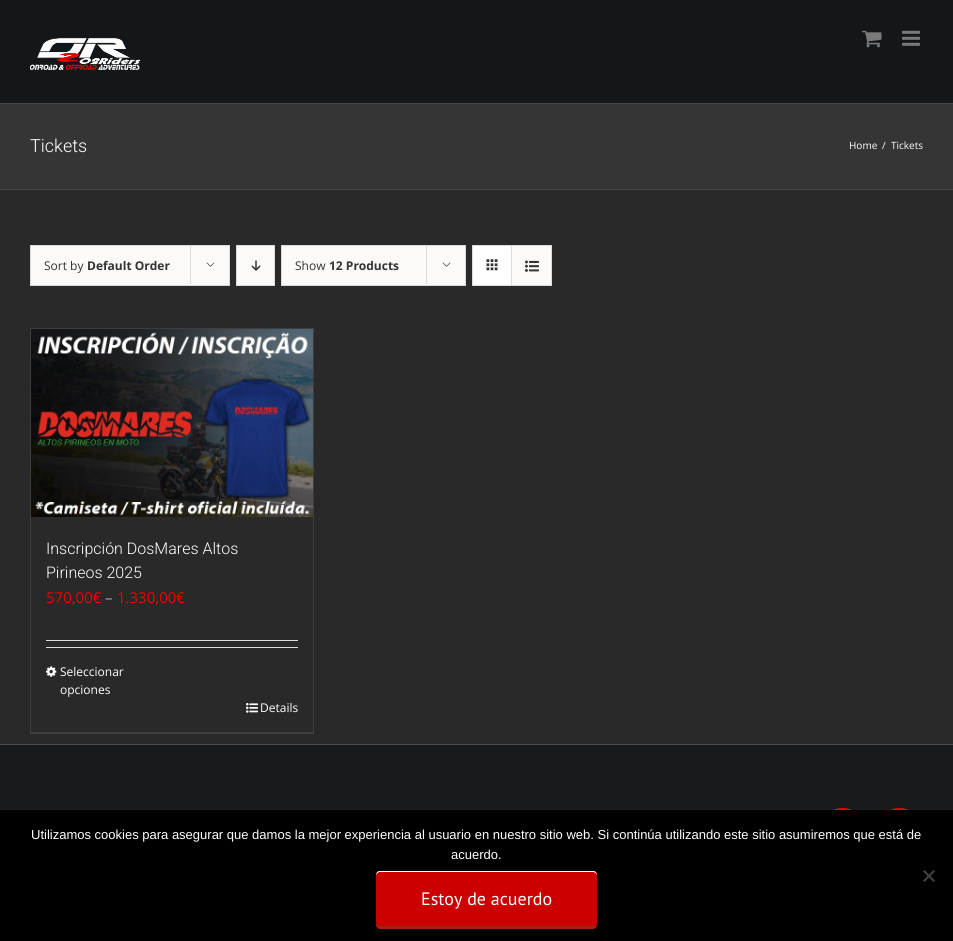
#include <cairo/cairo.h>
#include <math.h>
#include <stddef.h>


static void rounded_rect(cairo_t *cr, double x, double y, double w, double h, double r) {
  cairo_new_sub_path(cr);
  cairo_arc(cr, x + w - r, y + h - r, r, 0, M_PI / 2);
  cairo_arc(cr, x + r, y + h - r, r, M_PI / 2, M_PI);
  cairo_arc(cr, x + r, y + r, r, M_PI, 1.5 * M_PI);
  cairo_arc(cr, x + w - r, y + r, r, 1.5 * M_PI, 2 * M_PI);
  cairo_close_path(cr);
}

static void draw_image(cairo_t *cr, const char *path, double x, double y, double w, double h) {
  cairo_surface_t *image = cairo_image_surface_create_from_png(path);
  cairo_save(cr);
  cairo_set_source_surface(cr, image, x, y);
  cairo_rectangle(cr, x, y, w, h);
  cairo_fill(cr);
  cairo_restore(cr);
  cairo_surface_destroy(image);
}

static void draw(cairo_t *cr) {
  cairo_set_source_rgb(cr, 41 / 255.0, 41 / 255.0, 42 / 255.0);
  cairo_paint(cr);
  cairo_set_source_rgb(cr, 20 / 255.0, 23 / 255.0, 25 / 255.0);
  cairo_rectangle(cr, 0, 0, 953, 103);
  cairo_fill(cr);
  draw_image(cr, "images/1.png", 30, 38, 110, 32);
  draw_image(cr, "images/2.png", 862, 30, 20, 18);
  draw_image(cr, "images/3.png", 902, 30, 18, 16);
  cairo_set_source_rgb(cr, 53 / 255.0, 53 / 255.0, 53 / 255.0);
  cairo_rectangle(cr, 0, 104, 953, 85);
  cairo_fill(cr);
  cairo_set_source_rgb(cr, 70 / 255.0, 70 / 255.0, 70 / 255.0);
  cairo_rectangle(cr, 0, 103, 953, 1);
  cairo_fill(cr);
  cairo_rectangle(cr, 0, 189, 953, 1);
  cairo_fill(cr);
  cairo_set_source_rgb(cr, 251 / 255.0, 250 / 255.0, 249 / 255.0);
  cairo_rectangle(cr, 30.5, 245.5, 199, 40);
  cairo_fill_preserve(cr);
  cairo_set_source_rgb(cr, 219 / 255.0, 219 / 255.0, 219 / 255.0);
  cairo_set_line_width(cr, 1);
  cairo_stroke(cr);
  cairo_rectangle(cr, 190, 245, 1, 39);
  cairo_fill(cr);
  draw_image(cr, "images/4.png", 206, 262, 9, 5);
  cairo_set_source_rgb(cr, 251 / 255.0, 250 / 255.0, 249 / 255.0);
  cairo_rectangle(cr, 236.5, 245.5, 38, 40);
  cairo_fill_preserve(cr);
  cairo_set_source_rgb(cr, 219 / 255.0, 219 / 255.0, 219 / 255.0);
  cairo_stroke(cr);
  draw_image(cr, "images/5.png", 251, 260, 10, 11);
  cairo_set_source_rgb(cr, 251 / 255.0, 250 / 255.0, 249 / 255.0);
  cairo_rectangle(cr, 281.5, 245.5, 184, 40);
  cairo_fill_preserve(cr);
  cairo_set_source_rgb(cr, 219 / 255.0, 219 / 255.0, 219 / 255.0);
  cairo_stroke(cr);
  cairo_rectangle(cr, 426, 245, 1, 39);
  cairo_fill(cr);
  draw_image(cr, "images/4.png", 442, 262, 9, 5);
  cairo_rectangle(cr, 472.5, 245.5, 79, 40);
  cairo_stroke(cr);
  cairo_set_source_rgb(cr, 1, 1, 1);
  cairo_rectangle(cr, 473, 246, 38, 39);
  cairo_fill(cr);
  cairo_set_source_rgb(cr, 219 / 255.0, 219 / 255.0, 219 / 255.0);
  cairo_rectangle(cr, 511, 246, 1, 39);
  cairo_fill(cr);
  draw_image(cr, "images/6.png", 486, 259, 12, 12);
  cairo_set_source_rgb(cr, 251 / 255.0, 250 / 255.0, 249 / 255.0);
  cairo_rectangle(cr, 512, 246, 39, 39);
  cairo_fill(cr);
  draw_image(cr, "images/7.png", 525, 260, 14, 12);
  cairo_set_source_rgb(cr, 62 / 255.0, 62 / 255.0, 62 / 255.0);
  cairo_rectangle(cr, 30, 328, 284, 1);
  cairo_fill(cr);
  cairo_rectangle(cr, 313, 328, 1, 406);
  cairo_fill(cr);
  cairo_rectangle(cr, 30, 732, 284, 2);
  cairo_fill(cr);
  cairo_rectangle(cr, 30, 328, 1, 406);
  cairo_fill(cr);
  draw_image(cr, "images/8.png", 31, 329, 282, 188);
  cairo_set_source_rgb(cr, 224 / 255.0, 222 / 255.0, 222 / 255.0);
  cairo_rectangle(cr, 46, 640, 252, 1);
  cairo_fill(cr);
  cairo_rectangle(cr, 46, 647, 252, 1);
  cairo_fill(cr);
  draw_image(cr, "images/9.png", 46, 666, 11, 11);
  draw_image(cr, "images/10.png", 246, 703, 12, 10);
  cairo_set_source_rgb(cr, 23 / 255.0, 27 / 255.0, 29 / 255.0);
  cairo_rectangle(cr, 0, 745, 953, 65);
  cairo_fill(cr);
  cairo_set_source_rgb(cr, 75 / 255.0, 76 / 255.0, 77 / 255.0);
  cairo_rectangle(cr, 0, 744, 953, 1);
  cairo_fill(cr);
  cairo_set_source_rgb(cr, 239 / 255.0, 0, 0);
  cairo_arc(cr, 842.5, 831.5, 23, 0, 2 * M_PI);
  cairo_fill_preserve(cr);
  cairo_stroke(cr);
  cairo_arc(cr, 899.5, 831.5, 23, 0, 2 * M_PI);
  cairo_fill_preserve(cr);
  cairo_stroke(cr);
  cairo_set_source_rgb(cr, 0, 0, 0);
  cairo_rectangle(cr, 0, 810, 953, 131);
  cairo_fill(cr);
  cairo_set_source_rgb(cr, 64 / 255.0, 64 / 255.0, 64 / 255.0);
  cairo_new_path(cr);
  cairo_move_to(cr, 933.5, 870);
  cairo_line_to(cr, 935, 871.5);
  cairo_line_to(cr, 924.5, 882);
  cairo_line_to(cr, 923, 880.5);
  cairo_close_path(cr);
  cairo_fill(cr);
  cairo_new_path(cr);
  cairo_move_to(cr, 923, 871.5);
  cairo_line_to(cr, 924.5, 870);
  cairo_line_to(cr, 935, 880.5);
  cairo_line_to(cr, 933.5, 882);
  cairo_close_path(cr);
  cairo_fill(cr);
  cairo_set_source_rgb(cr, 160 / 255.0, 36 / 255.0, 22 / 255.0);
  cairo_new_path(cr);
  cairo_move_to(cr, 376, 922);
  cairo_line_to(cr, 376, 925);
  cairo_curve_to(cr, 376, 927, 378, 929, 380, 929);
  cairo_line_to(cr, 593, 929);
  cairo_curve_to(cr, 595, 929, 597, 927, 597, 925);
  cairo_line_to(cr, 597, 922);
  cairo_curve_to(cr, 597, 924, 595, 926, 593, 926);
  cairo_line_to(cr, 380, 926);
  cairo_curve_to(cr, 378, 926, 376, 924, 376, 922);
  cairo_close_path(cr);
  cairo_fill(cr);
  cairo_set_source_rgb(cr, 204 / 255.0, 0, 0);
  rounded_rect(cr, 376, 871, 221, 55, 4);
  cairo_fill(cr);
  cairo_set_source_rgb(cr, 1, 1, 1);
  cairo_new_path(cr);
  cairo_move_to(cr, 380, 872);
  cairo_line_to(cr, 593, 872);
  cairo_curve_to(cr, 595, 872, 597, 874, 597, 876);
  cairo_curve_to(cr, 597, 873, 596, 871, 593, 871);
  cairo_line_to(cr, 380, 871);
  cairo_curve_to(cr, 377, 871, 376, 873, 376, 876);
  cairo_curve_to(cr, 376, 874, 378, 872, 380, 872);
  cairo_close_path(cr);
  cairo_fill(cr);
  cairo_select_font_face(cr, "Roboto Light", CAIRO_FONT_SLANT_NORMAL, CAIRO_FONT_WEIGHT_NORMAL);
  cairo_set_font_size(cr, 18);
  cairo_move_to(cr, 30, 152);
  cairo_show_text(cr, "Tickets");
  cairo_select_font_face(cr, "Open Sans", CAIRO_FONT_SLANT_NORMAL, CAIRO_FONT_WEIGHT_NORMAL);
  cairo_set_font_size(cr, 10);
  cairo_move_to(cr, 849, 149);
  cairo_show_text(cr, "Home");
  cairo_move_to(cr, 882, 149);
  cairo_show_text(cr, "/");
  cairo_move_to(cr, 891, 149);
  cairo_show_text(cr, "Tickets");
  cairo_set_font_size(cr, 12);
  cairo_set_source_rgb(cr, 51 / 255.0, 51 / 255.0, 51 / 255.0);
  cairo_move_to(cr, 44, 270);
  cairo_show_text(cr, "Sort by");
  cairo_select_font_face(cr, "Open Sans", CAIRO_FONT_SLANT_NORMAL, CAIRO_FONT_WEIGHT_BOLD);
  cairo_move_to(cr, 87, 270);
  cairo_show_text(cr, "Default Order");
  cairo_select_font_face(cr, "Open Sans", CAIRO_FONT_SLANT_NORMAL, CAIRO_FONT_WEIGHT_NORMAL);
  cairo_move_to(cr, 295, 270);
  cairo_show_text(cr, "Show");
  cairo_select_font_face(cr, "Open Sans", CAIRO_FONT_SLANT_NORMAL, CAIRO_FONT_WEIGHT_BOLD);
  cairo_move_to(cr, 329, 270);
  cairo_show_text(cr, "12 Products");
  cairo_select_font_face(cr, "Roboto Light", CAIRO_FONT_SLANT_NORMAL, CAIRO_FONT_WEIGHT_NORMAL);
  cairo_set_font_size(cr, 16);
  cairo_set_source_rgb(cr, 1, 1, 1);
  cairo_move_to(cr, 46, 554);
  cairo_show_text(cr, "Inscripción DosMares Altos");
  cairo_move_to(cr, 46, 578);
  cairo_show_text(cr, "Pirineos 2025");
  cairo_select_font_face(cr, "Open Sans", CAIRO_FONT_SLANT_NORMAL, CAIRO_FONT_WEIGHT_NORMAL);
  cairo_set_font_size(cr, 15);
  cairo_set_source_rgb(cr, 239 / 255.0, 0, 0);
  cairo_move_to(cr, 46, 603);
  cairo_show_text(cr, "570,00€");
  cairo_set_source_rgb(cr, 170 / 255.0, 169 / 255.0, 169 / 255.0);
  cairo_move_to(cr, 105, 603);
  cairo_show_text(cr, "–");
  cairo_set_source_rgb(cr, 239 / 255.0, 0, 0);
  cairo_move_to(cr, 117, 603);
  cairo_show_text(cr, "1.330,00€");
  cairo_set_font_size(cr, 12);
  cairo_set_source_rgb(cr, 1, 1, 1);
  cairo_move_to(cr, 60, 676);
  cairo_show_text(cr, "Seleccionar");
  cairo_move_to(cr, 60, 694);
  cairo_show_text(cr, "opciones");
  cairo_move_to(cr, 260, 712);
  cairo_show_text(cr, "Details");
  cairo_select_font_face(cr, "Liberation Sans", CAIRO_FONT_SLANT_NORMAL, CAIRO_FONT_WEIGHT_NORMAL);
  cairo_set_font_size(cr, 13);
  cairo_move_to(cr, 31, 839);
  cairo_show_text(cr, "Utilizamos cookies para asegurar que damos la mejor experiencia al usuario en nuestro sitio web. Si continúa utilizando este sitio asumiremos que está de");
  cairo_move_to(cr, 451, 859);
  cairo_show_text(cr, "acuerdo.");
  cairo_select_font_face(cr, "PT Sans", CAIRO_FONT_SLANT_NORMAL, CAIRO_FONT_WEIGHT_NORMAL);
  cairo_set_font_size(cr, 18);
  cairo_move_to(cr, 421, 905);
  cairo_show_text(cr, "Estoy de acuerdo");
}

int main(void) {
  cairo_surface_t *surface = cairo_image_surface_create(CAIRO_FORMAT_RGB24, 953, 941);
  cairo_t *cr = cairo_create(surface);
  cairo_font_options_t *options = cairo_font_options_create();
  cairo_font_options_set_hint_metrics(options, CAIRO_HINT_METRICS_OFF);
  cairo_font_options_set_hint_style(options, CAIRO_HINT_STYLE_NONE);
  cairo_set_font_options(cr, options);
  cairo_set_miter_limit(cr, 4);
  draw(cr);
  cairo_surface_write_to_png(surface, "out.png");
  cairo_font_options_destroy(options);
  cairo_destroy(cr);
  cairo_surface_destroy(surface);
  return 0;
}
